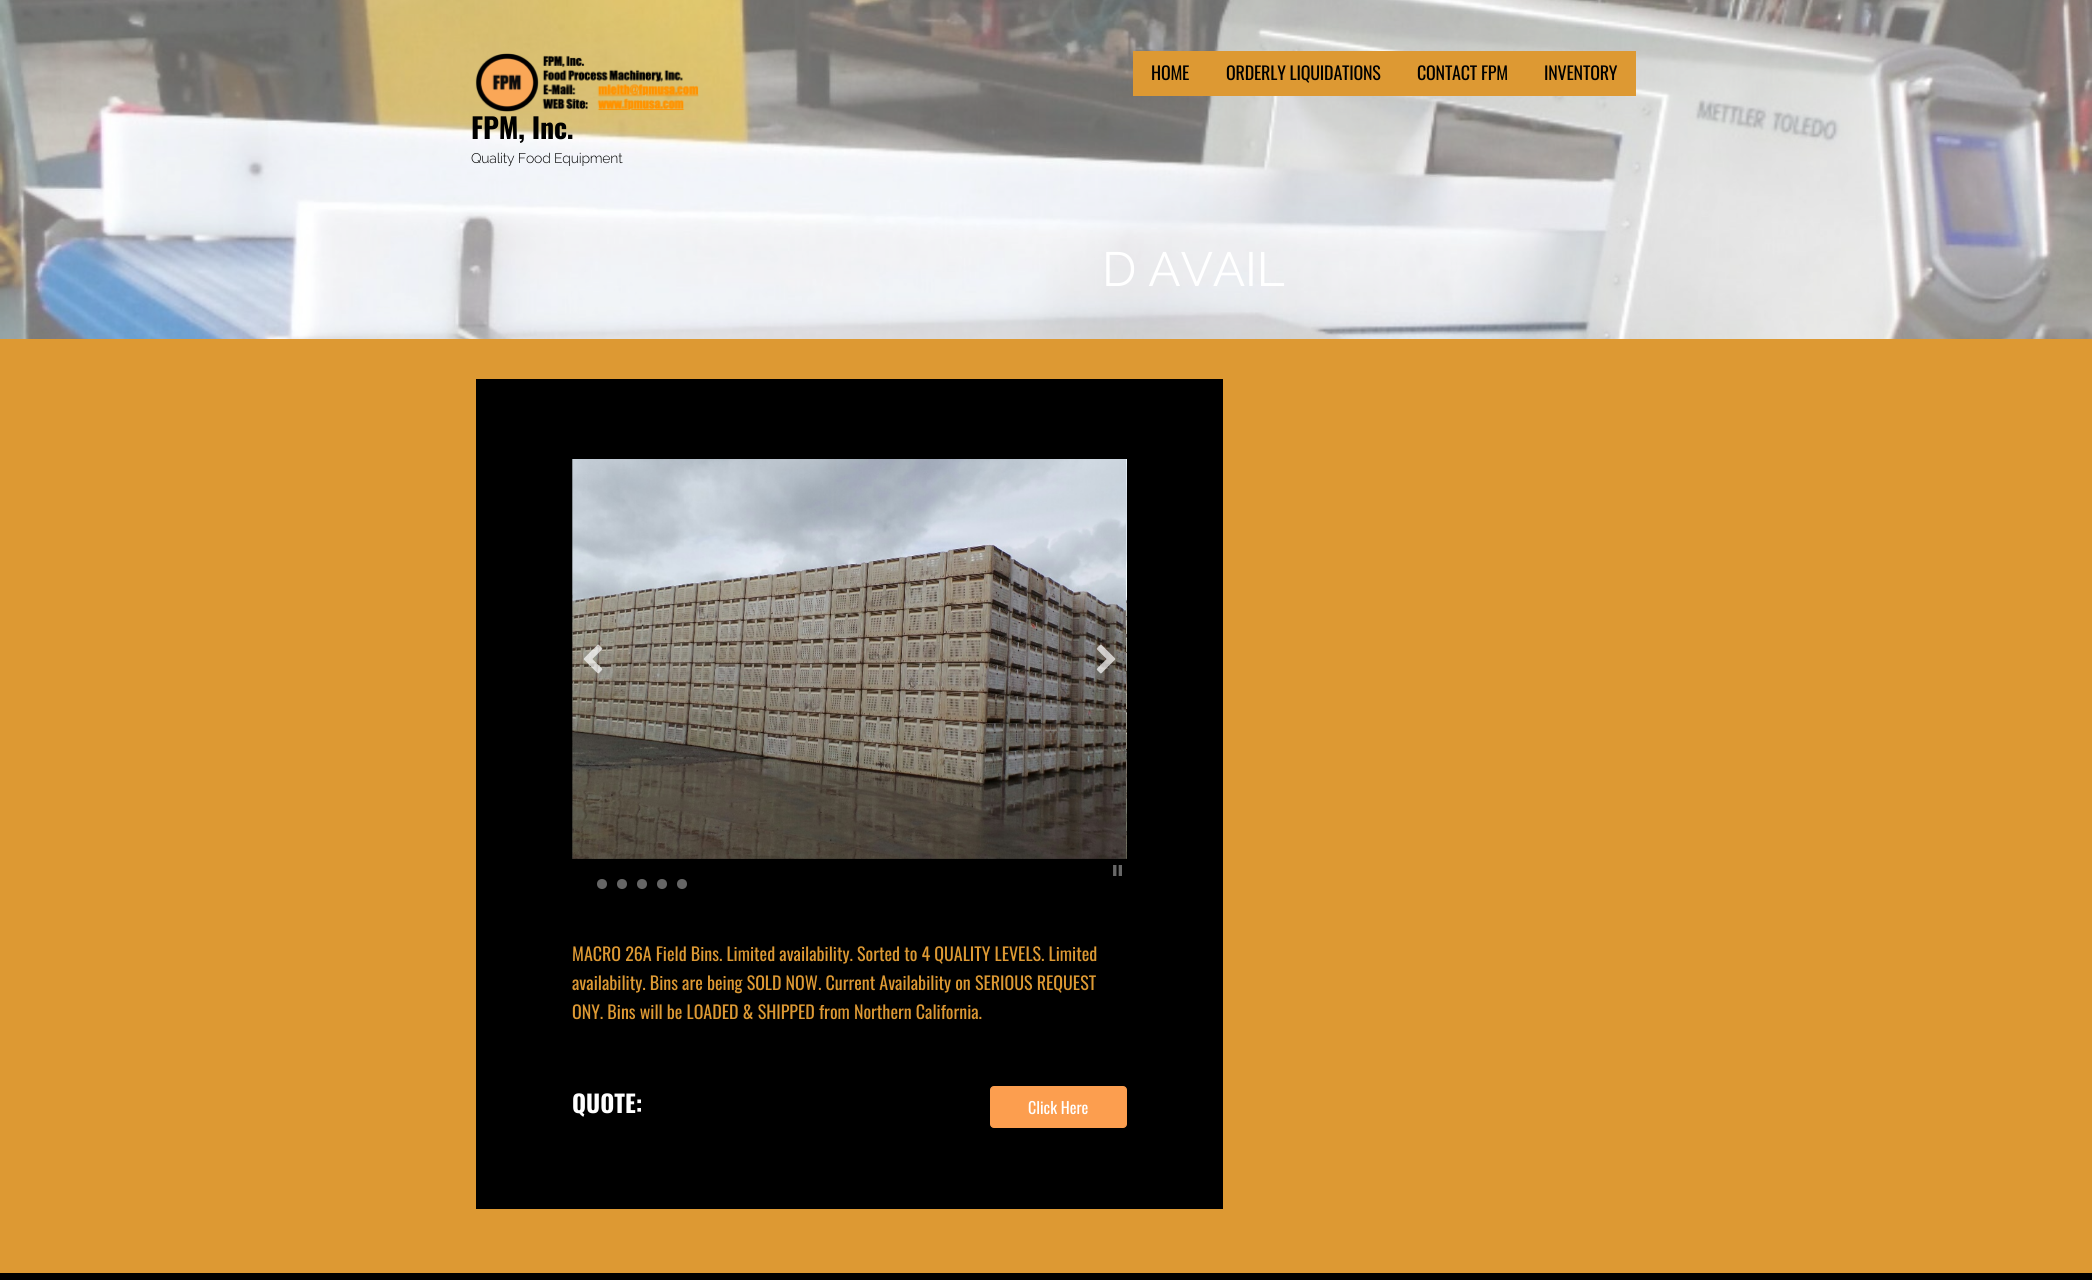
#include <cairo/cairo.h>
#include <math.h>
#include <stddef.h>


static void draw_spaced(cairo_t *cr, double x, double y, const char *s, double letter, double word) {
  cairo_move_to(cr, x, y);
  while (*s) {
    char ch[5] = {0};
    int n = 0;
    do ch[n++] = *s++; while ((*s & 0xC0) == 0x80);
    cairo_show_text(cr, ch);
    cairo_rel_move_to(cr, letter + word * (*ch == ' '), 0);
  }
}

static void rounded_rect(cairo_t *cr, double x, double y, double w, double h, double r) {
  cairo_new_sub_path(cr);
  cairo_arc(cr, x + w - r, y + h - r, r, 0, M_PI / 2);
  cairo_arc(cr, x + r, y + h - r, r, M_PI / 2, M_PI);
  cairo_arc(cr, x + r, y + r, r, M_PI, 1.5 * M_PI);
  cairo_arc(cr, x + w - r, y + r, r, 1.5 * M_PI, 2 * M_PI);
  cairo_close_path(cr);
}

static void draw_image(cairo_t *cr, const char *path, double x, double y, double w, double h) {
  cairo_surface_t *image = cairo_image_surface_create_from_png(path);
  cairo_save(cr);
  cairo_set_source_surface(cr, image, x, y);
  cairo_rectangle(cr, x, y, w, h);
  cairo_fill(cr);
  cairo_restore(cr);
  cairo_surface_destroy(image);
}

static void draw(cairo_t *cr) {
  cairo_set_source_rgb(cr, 221 / 255.0, 153 / 255.0, 51 / 255.0);
  cairo_paint(cr);
  draw_image(cr, "images/1.png", 0, 0, 2092, 339);
  cairo_set_source_rgb(cr, 221 / 255.0, 153 / 255.0, 51 / 255.0);
  cairo_rectangle(cr, 1133, 51, 503, 45);
  cairo_fill(cr);
  draw_image(cr, "images/2.png", 475, 53, 224, 59);
  cairo_set_source_rgb(cr, 0, 0, 0);
  cairo_rectangle(cr, 476, 379, 747, 830);
  cairo_fill(cr);
  draw_image(cr, "images/3.png", 572, 459, 1, 400);
  draw_image(cr, "images/4.png", 572, 459, 554, 400);
  draw_image(cr, "images/5.png", 1126, 459, 1, 400);
  draw_image(cr, "images/6.png", 1113, 865, 9, 11);
  cairo_set_source_rgb(cr, 102 / 255.0, 102 / 255.0, 102 / 255.0);
  cairo_arc(cr, 602, 884, 5, 0, 2 * M_PI);
  cairo_fill(cr);
  cairo_arc(cr, 622, 884, 5, 0, 2 * M_PI);
  cairo_fill(cr);
  cairo_arc(cr, 642, 884, 5, 0, 2 * M_PI);
  cairo_fill(cr);
  cairo_arc(cr, 662, 884, 5, 0, 2 * M_PI);
  cairo_fill(cr);
  cairo_arc(cr, 682, 884, 5, 0, 2 * M_PI);
  cairo_fill(cr);
  draw_image(cr, "images/7.png", 583, 644, 20, 30);
  draw_image(cr, "images/8.png", 1096, 644, 20, 30);
  cairo_set_source_rgb(cr, 252 / 255.0, 158 / 255.0, 79 / 255.0);
  rounded_rect(cr, 990.5, 1086.5, 136, 41, 3.5);
  cairo_fill_preserve(cr);
  cairo_set_line_width(cr, 1);
  cairo_stroke(cr);
  cairo_set_source_rgb(cr, 0, 0, 0);
  cairo_rectangle(cr, 0, 1273, 2092, 7);
  cairo_fill(cr);
  cairo_select_font_face(cr, "Oswald", CAIRO_FONT_SLANT_NORMAL, CAIRO_FONT_WEIGHT_NORMAL);
  cairo_set_font_size(cr, 18);
  draw_spaced(cr, 1151, 80, "HOME", -0.2, 0);
  draw_spaced(cr, 1226, 80, "ORDERLY LIQUIDATIONS", -0.2, 0);
  draw_spaced(cr, 1417, 80, "CONTACT FPM", -0.2, 0);
  draw_spaced(cr, 1544, 80, "INVENTORY", -0.2, 0);
  cairo_select_font_face(cr, "Oswald", CAIRO_FONT_SLANT_NORMAL, CAIRO_FONT_WEIGHT_BOLD);
  cairo_set_font_size(cr, 28);
  draw_spaced(cr, 471, 139, "FPM, Inc.", -0.2, 0);
  cairo_select_font_face(cr, "Raleway Light", CAIRO_FONT_SLANT_NORMAL, CAIRO_FONT_WEIGHT_NORMAL);
  cairo_set_font_size(cr, 14);
  draw_spaced(cr, 471, 163, "Quality Food Equipment", -0.2, 0);
  cairo_select_font_face(cr, "Raleway", CAIRO_FONT_SLANT_NORMAL, CAIRO_FONT_WEIGHT_NORMAL);
  cairo_set_font_size(cr, 48);
  cairo_set_source_rgb(cr, 1, 1, 1);
  draw_spaced(cr, 1102, 286, "D AVAIL", -0.2, 0);
  cairo_select_font_face(cr, "Oswald", CAIRO_FONT_SLANT_NORMAL, CAIRO_FONT_WEIGHT_NORMAL);
  cairo_set_font_size(cr, 18);
  cairo_set_source_rgb(cr, 221 / 255.0, 153 / 255.0, 51 / 255.0);
  cairo_move_to(cr, 572, 961);
  cairo_show_text(cr, "MACRO 26A Field Bins. Limited availability. Sorted to 4 QUALITY LEVELS. Limited");
  cairo_move_to(cr, 572, 990);
  cairo_show_text(cr, "availability. Bins are being SOLD NOW. Current Availability on SERIOUS REQUEST");
  cairo_move_to(cr, 572, 1019);
  cairo_show_text(cr, "ONY. Bins will be LOADED & SHIPPED from Northern California.");
  cairo_select_font_face(cr, "Oswald", CAIRO_FONT_SLANT_NORMAL, CAIRO_FONT_WEIGHT_BOLD);
  cairo_set_font_size(cr, 24);
  cairo_set_source_rgb(cr, 1, 1, 1);
  cairo_move_to(cr, 572, 1113);
  cairo_show_text(cr, "QUOTE:");
  cairo_select_font_face(cr, "Oswald", CAIRO_FONT_SLANT_NORMAL, CAIRO_FONT_WEIGHT_NORMAL);
  cairo_set_font_size(cr, 16);
  cairo_move_to(cr, 1028, 1114);
  cairo_show_text(cr, "Click Here");
}

int main(void) {
  cairo_surface_t *surface = cairo_image_surface_create(CAIRO_FORMAT_RGB24, 2092, 1280);
  cairo_t *cr = cairo_create(surface);
  cairo_font_options_t *options = cairo_font_options_create();
  cairo_font_options_set_hint_metrics(options, CAIRO_HINT_METRICS_OFF);
  cairo_font_options_set_hint_style(options, CAIRO_HINT_STYLE_NONE);
  cairo_set_font_options(cr, options);
  cairo_set_miter_limit(cr, 4);
  draw(cr);
  cairo_surface_write_to_png(surface, "out.png");
  cairo_font_options_destroy(options);
  cairo_destroy(cr);
  cairo_surface_destroy(surface);
  return 0;
}
